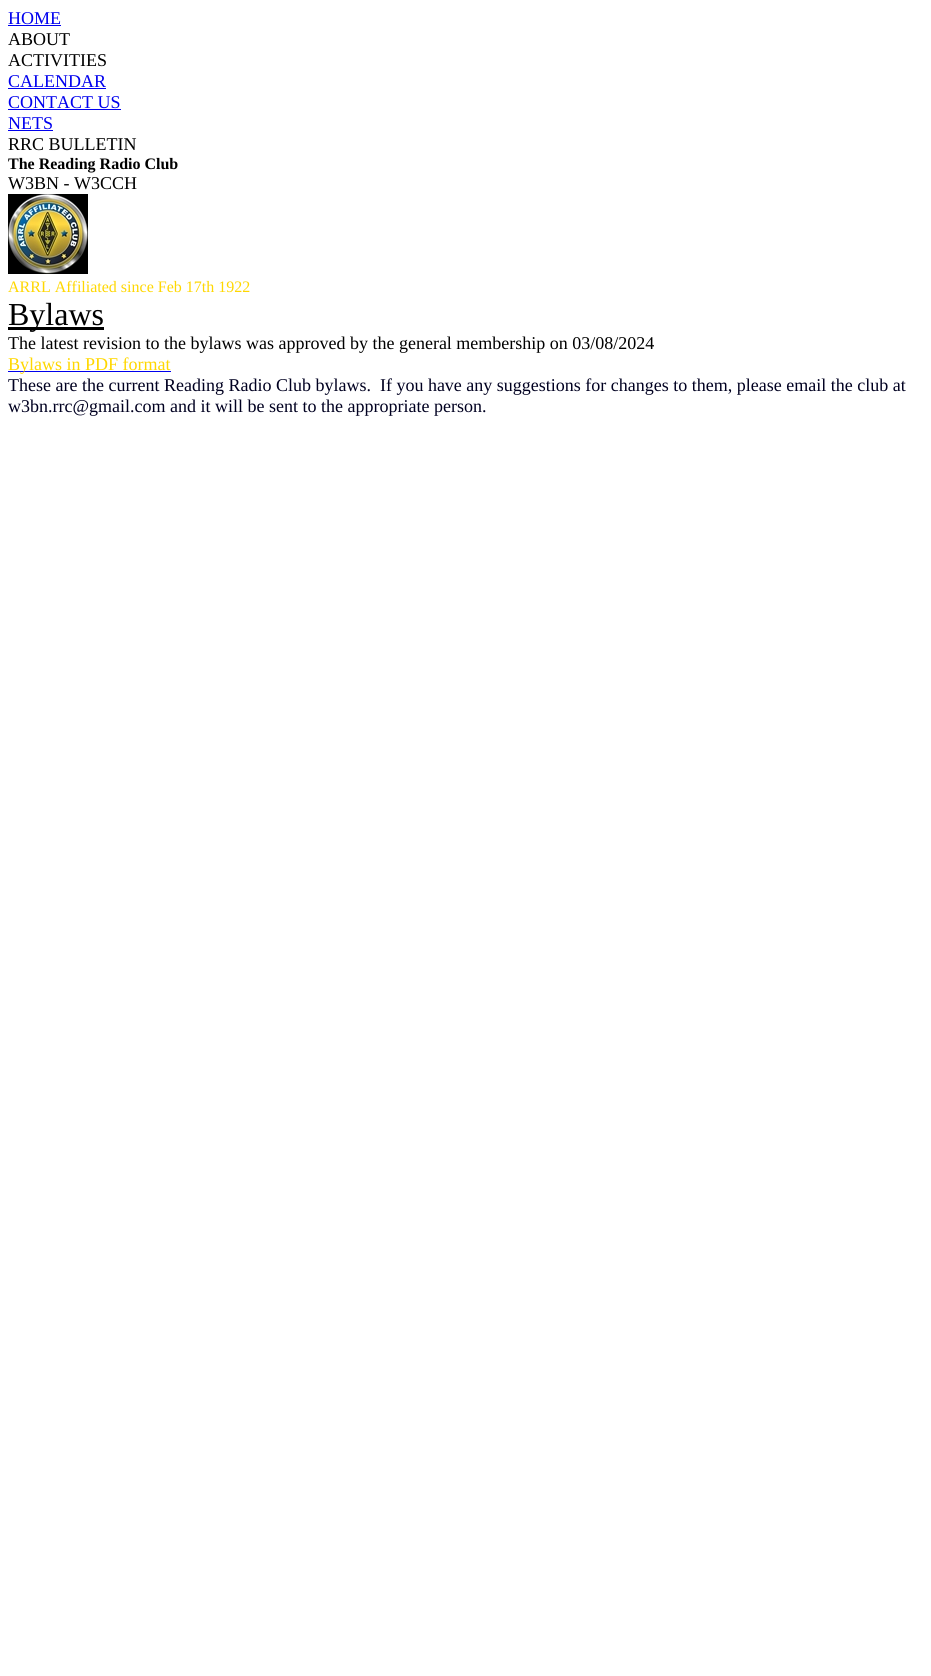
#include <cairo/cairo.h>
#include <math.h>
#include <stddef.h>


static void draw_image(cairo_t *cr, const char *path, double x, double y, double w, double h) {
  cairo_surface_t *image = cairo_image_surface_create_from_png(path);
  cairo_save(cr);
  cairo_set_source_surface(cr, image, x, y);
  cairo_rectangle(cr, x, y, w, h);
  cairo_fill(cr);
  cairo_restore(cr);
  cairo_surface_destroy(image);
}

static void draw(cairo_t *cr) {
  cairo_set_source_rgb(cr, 1, 1, 1);
  cairo_paint(cr);
  cairo_set_source_rgb(cr, 0, 0, 238 / 255.0);
  cairo_rectangle(cr, 8, 25, 53, 1);
  cairo_fill(cr);
  cairo_rectangle(cr, 8, 88, 98, 1);
  cairo_fill(cr);
  cairo_rectangle(cr, 8, 109, 113, 1);
  cairo_fill(cr);
  cairo_rectangle(cr, 8, 130, 45, 1);
  cairo_fill(cr);
  draw_image(cr, "images/1.png", 8, 194, 80, 80);
  cairo_set_source_rgb(cr, 0, 0, 0);
  cairo_rectangle(cr, 8, 327, 96, 3);
  cairo_fill(cr);
  cairo_set_source_rgb(cr, 0, 0, 238 / 255.0);
  cairo_rectangle(cr, 8, 371, 163, 1);
  cairo_fill(cr);
  cairo_select_font_face(cr, "Liberation Serif", CAIRO_FONT_SLANT_NORMAL, CAIRO_FONT_WEIGHT_NORMAL);
  cairo_set_font_size(cr, 18);
  cairo_move_to(cr, 8, 24);
  cairo_show_text(cr, "HOME");
  cairo_set_source_rgb(cr, 0, 0, 0);
  cairo_move_to(cr, 8, 45);
  cairo_show_text(cr, "ABOUT");
  cairo_move_to(cr, 8, 66);
  cairo_show_text(cr, "ACTIVITIES");
  cairo_set_source_rgb(cr, 0, 0, 238 / 255.0);
  cairo_move_to(cr, 8, 87);
  cairo_show_text(cr, "CALENDAR");
  cairo_move_to(cr, 8, 108);
  cairo_show_text(cr, "CONTACT US");
  cairo_move_to(cr, 8, 129);
  cairo_show_text(cr, "NETS");
  cairo_set_source_rgb(cr, 0, 0, 0);
  cairo_move_to(cr, 8, 150);
  cairo_show_text(cr, "RRC BULLETIN");
  cairo_select_font_face(cr, "Liberation Serif", CAIRO_FONT_SLANT_NORMAL, CAIRO_FONT_WEIGHT_BOLD);
  cairo_set_font_size(cr, 16);
  cairo_move_to(cr, 8, 169);
  cairo_show_text(cr, "The Reading Radio Club");
  cairo_select_font_face(cr, "Liberation Serif", CAIRO_FONT_SLANT_NORMAL, CAIRO_FONT_WEIGHT_NORMAL);
  cairo_set_font_size(cr, 18);
  cairo_move_to(cr, 8, 189);
  cairo_show_text(cr, "W3BN - W3CCH");
  cairo_set_font_size(cr, 16);
  cairo_set_source_rgb(cr, 1, 215 / 255.0, 0);
  cairo_move_to(cr, 8, 292);
  cairo_show_text(cr, "ARRL Affiliated since Feb 17th 1922");
  cairo_set_font_size(cr, 32);
  cairo_set_source_rgb(cr, 0, 0, 0);
  cairo_move_to(cr, 8, 325);
  cairo_show_text(cr, "Bylaws");
  cairo_set_font_size(cr, 18);
  cairo_move_to(cr, 8, 349);
  cairo_show_text(cr, "The latest revision to the bylaws was approved by the general membership on 03/08/2024");
  cairo_set_source_rgb(cr, 1, 215 / 255.0, 0);
  cairo_move_to(cr, 8, 370);
  cairo_show_text(cr, "Bylaws in PDF format");
  cairo_set_source_rgb(cr, 0, 0, 32 / 255.0);
  cairo_move_to(cr, 8, 391);
  cairo_show_text(cr, "These are the current Reading Radio Club bylaws.  If you have any suggestions for changes to them, please email the club at");
  cairo_move_to(cr, 8, 412);
  cairo_show_text(cr, "w3bn.rrc@gmail.com and it will be sent to the appropriate person.");
}

int main(void) {
  cairo_surface_t *surface = cairo_image_surface_create(CAIRO_FORMAT_RGB24, 931, 1676);
  cairo_t *cr = cairo_create(surface);
  cairo_font_options_t *options = cairo_font_options_create();
  cairo_font_options_set_hint_metrics(options, CAIRO_HINT_METRICS_OFF);
  cairo_font_options_set_hint_style(options, CAIRO_HINT_STYLE_NONE);
  cairo_set_font_options(cr, options);
  cairo_set_miter_limit(cr, 4);
  draw(cr);
  cairo_surface_write_to_png(surface, "out.png");
  cairo_font_options_destroy(options);
  cairo_destroy(cr);
  cairo_surface_destroy(surface);
  return 0;
}
